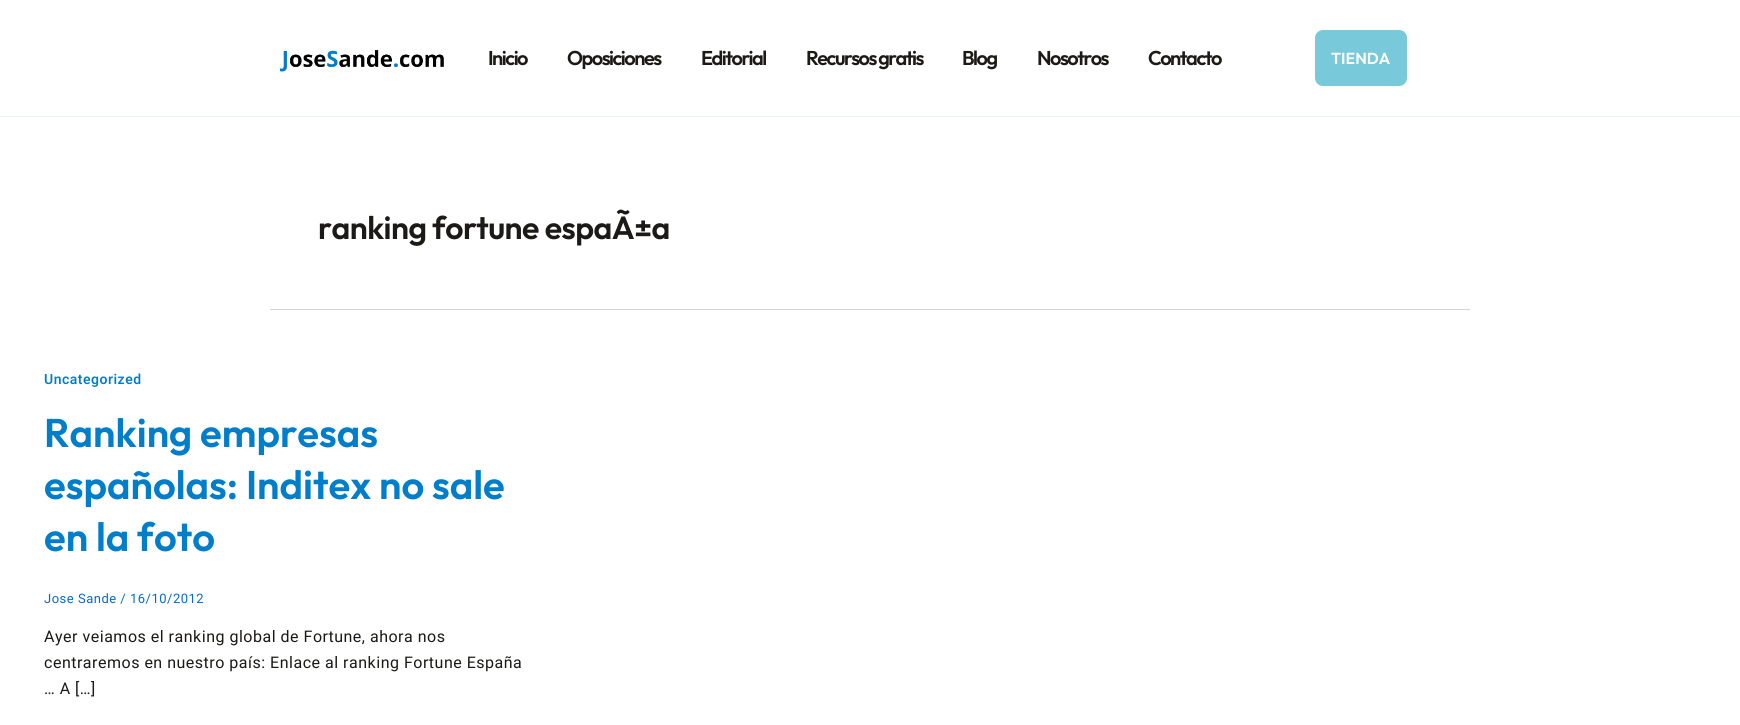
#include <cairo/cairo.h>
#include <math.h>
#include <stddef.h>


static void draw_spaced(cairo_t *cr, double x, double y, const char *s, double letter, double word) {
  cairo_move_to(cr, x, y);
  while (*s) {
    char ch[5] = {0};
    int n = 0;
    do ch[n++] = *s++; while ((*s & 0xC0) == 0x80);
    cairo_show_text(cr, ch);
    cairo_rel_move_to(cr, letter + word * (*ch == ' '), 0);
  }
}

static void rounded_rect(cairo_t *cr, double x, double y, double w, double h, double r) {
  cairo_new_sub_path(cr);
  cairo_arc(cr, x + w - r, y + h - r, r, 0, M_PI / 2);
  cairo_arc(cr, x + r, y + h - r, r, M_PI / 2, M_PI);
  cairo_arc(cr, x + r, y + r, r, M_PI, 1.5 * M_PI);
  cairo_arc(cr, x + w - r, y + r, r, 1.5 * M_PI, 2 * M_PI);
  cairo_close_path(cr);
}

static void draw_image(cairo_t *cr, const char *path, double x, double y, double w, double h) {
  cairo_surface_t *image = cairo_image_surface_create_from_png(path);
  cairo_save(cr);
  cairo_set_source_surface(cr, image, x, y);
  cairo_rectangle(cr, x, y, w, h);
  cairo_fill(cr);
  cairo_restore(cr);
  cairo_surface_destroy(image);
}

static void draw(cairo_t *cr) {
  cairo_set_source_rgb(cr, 1, 1, 1);
  cairo_paint(cr);
  cairo_set_source_rgb(cr, 234 / 255.0, 238 / 255.0, 245 / 255.0);
  cairo_rectangle(cr, 0, 116, 1740, 1);
  cairo_fill(cr);
  draw_image(cr, "images/1.png", 279, 50, 165, 22);
  cairo_set_source_rgb(cr, 120 / 255.0, 202 / 255.0, 218 / 255.0);
  rounded_rect(cr, 1315, 30, 92, 56, 8);
  cairo_fill(cr);
  cairo_set_source_rgb(cr, 209 / 255.0, 213 / 255.0, 219 / 255.0);
  cairo_rectangle(cr, 270, 309, 1200, 1);
  cairo_fill(cr);
  cairo_select_font_face(cr, "Outfit SemiBold", CAIRO_FONT_SLANT_NORMAL, CAIRO_FONT_WEIGHT_NORMAL);
  cairo_set_font_size(cr, 20);
  cairo_set_source_rgb(cr, 27 / 255.0, 26 / 255.0, 23 / 255.0);
  draw_spaced(cr, 488, 65, "Inicio", -1.5, 0);
  draw_spaced(cr, 567, 65, "Oposiciones", -1.5, 0);
  draw_spaced(cr, 701, 65, "Editorial", -1.5, 0);
  draw_spaced(cr, 806, 65, "Recursos gratis", -1.5, 0);
  draw_spaced(cr, 962, 65, "Blog", -1.5, 0);
  draw_spaced(cr, 1037, 65, "Nosotros", -1.5, 0);
  draw_spaced(cr, 1148, 65, "Contacto", -1.5, 0);
  cairo_set_font_size(cr, 16);
  cairo_set_source_rgb(cr, 1, 1, 1);
  cairo_move_to(cr, 1331, 64);
  cairo_show_text(cr, "TIENDA");
  cairo_set_font_size(cr, 32);
  cairo_set_source_rgb(cr, 27 / 255.0, 26 / 255.0, 23 / 255.0);
  draw_spaced(cr, 318, 239, "ranking fortune espaÃ±a", -0.5, 0);
  cairo_select_font_face(cr, "Heebo SemiBold", CAIRO_FONT_SLANT_NORMAL, CAIRO_FONT_WEIGHT_NORMAL);
  cairo_set_font_size(cr, 14);
  cairo_set_source_rgb(cr, 0, 126 / 255.0, 202 / 255.0);
  draw_spaced(cr, 44, 384, "Uncategorized", 0.5, 0);
  cairo_select_font_face(cr, "Outfit SemiBold", CAIRO_FONT_SLANT_NORMAL, CAIRO_FONT_WEIGHT_NORMAL);
  cairo_set_font_size(cr, 40);
  cairo_move_to(cr, 44, 447);
  cairo_show_text(cr, "Ranking empresas");
  cairo_move_to(cr, 44, 499);
  cairo_show_text(cr, "españolas: Inditex no sale");
  cairo_move_to(cr, 44, 551);
  cairo_show_text(cr, "en la foto");
  cairo_select_font_face(cr, "Heebo", CAIRO_FONT_SLANT_NORMAL, CAIRO_FONT_WEIGHT_NORMAL);
  cairo_set_font_size(cr, 13);
  cairo_set_source_rgb(cr, 4 / 255.0, 107 / 255.0, 210 / 255.0);
  draw_spaced(cr, 44, 603, "Jose Sande / 16/10/2012", 0.5, 0);
  cairo_set_font_size(cr, 16);
  cairo_set_source_rgb(cr, 27 / 255.0, 26 / 255.0, 23 / 255.0);
  draw_spaced(cr, 44, 642, "Ayer veiamos el ranking global de Fortune, ahora nos", 0.5, 0);
  draw_spaced(cr, 44, 668, "centraremos en nuestro país: Enlace al ranking Fortune España", 0.5, 0);
  draw_spaced(cr, 44, 694, "… A […]", 0.5, 0);
}

int main(void) {
  cairo_surface_t *surface = cairo_image_surface_create(CAIRO_FORMAT_RGB24, 1740, 725);
  cairo_t *cr = cairo_create(surface);
  cairo_font_options_t *options = cairo_font_options_create();
  cairo_font_options_set_hint_metrics(options, CAIRO_HINT_METRICS_OFF);
  cairo_font_options_set_hint_style(options, CAIRO_HINT_STYLE_NONE);
  cairo_set_font_options(cr, options);
  cairo_set_miter_limit(cr, 4);
  draw(cr);
  cairo_surface_write_to_png(surface, "out.png");
  cairo_font_options_destroy(options);
  cairo_destroy(cr);
  cairo_surface_destroy(surface);
  return 0;
}
